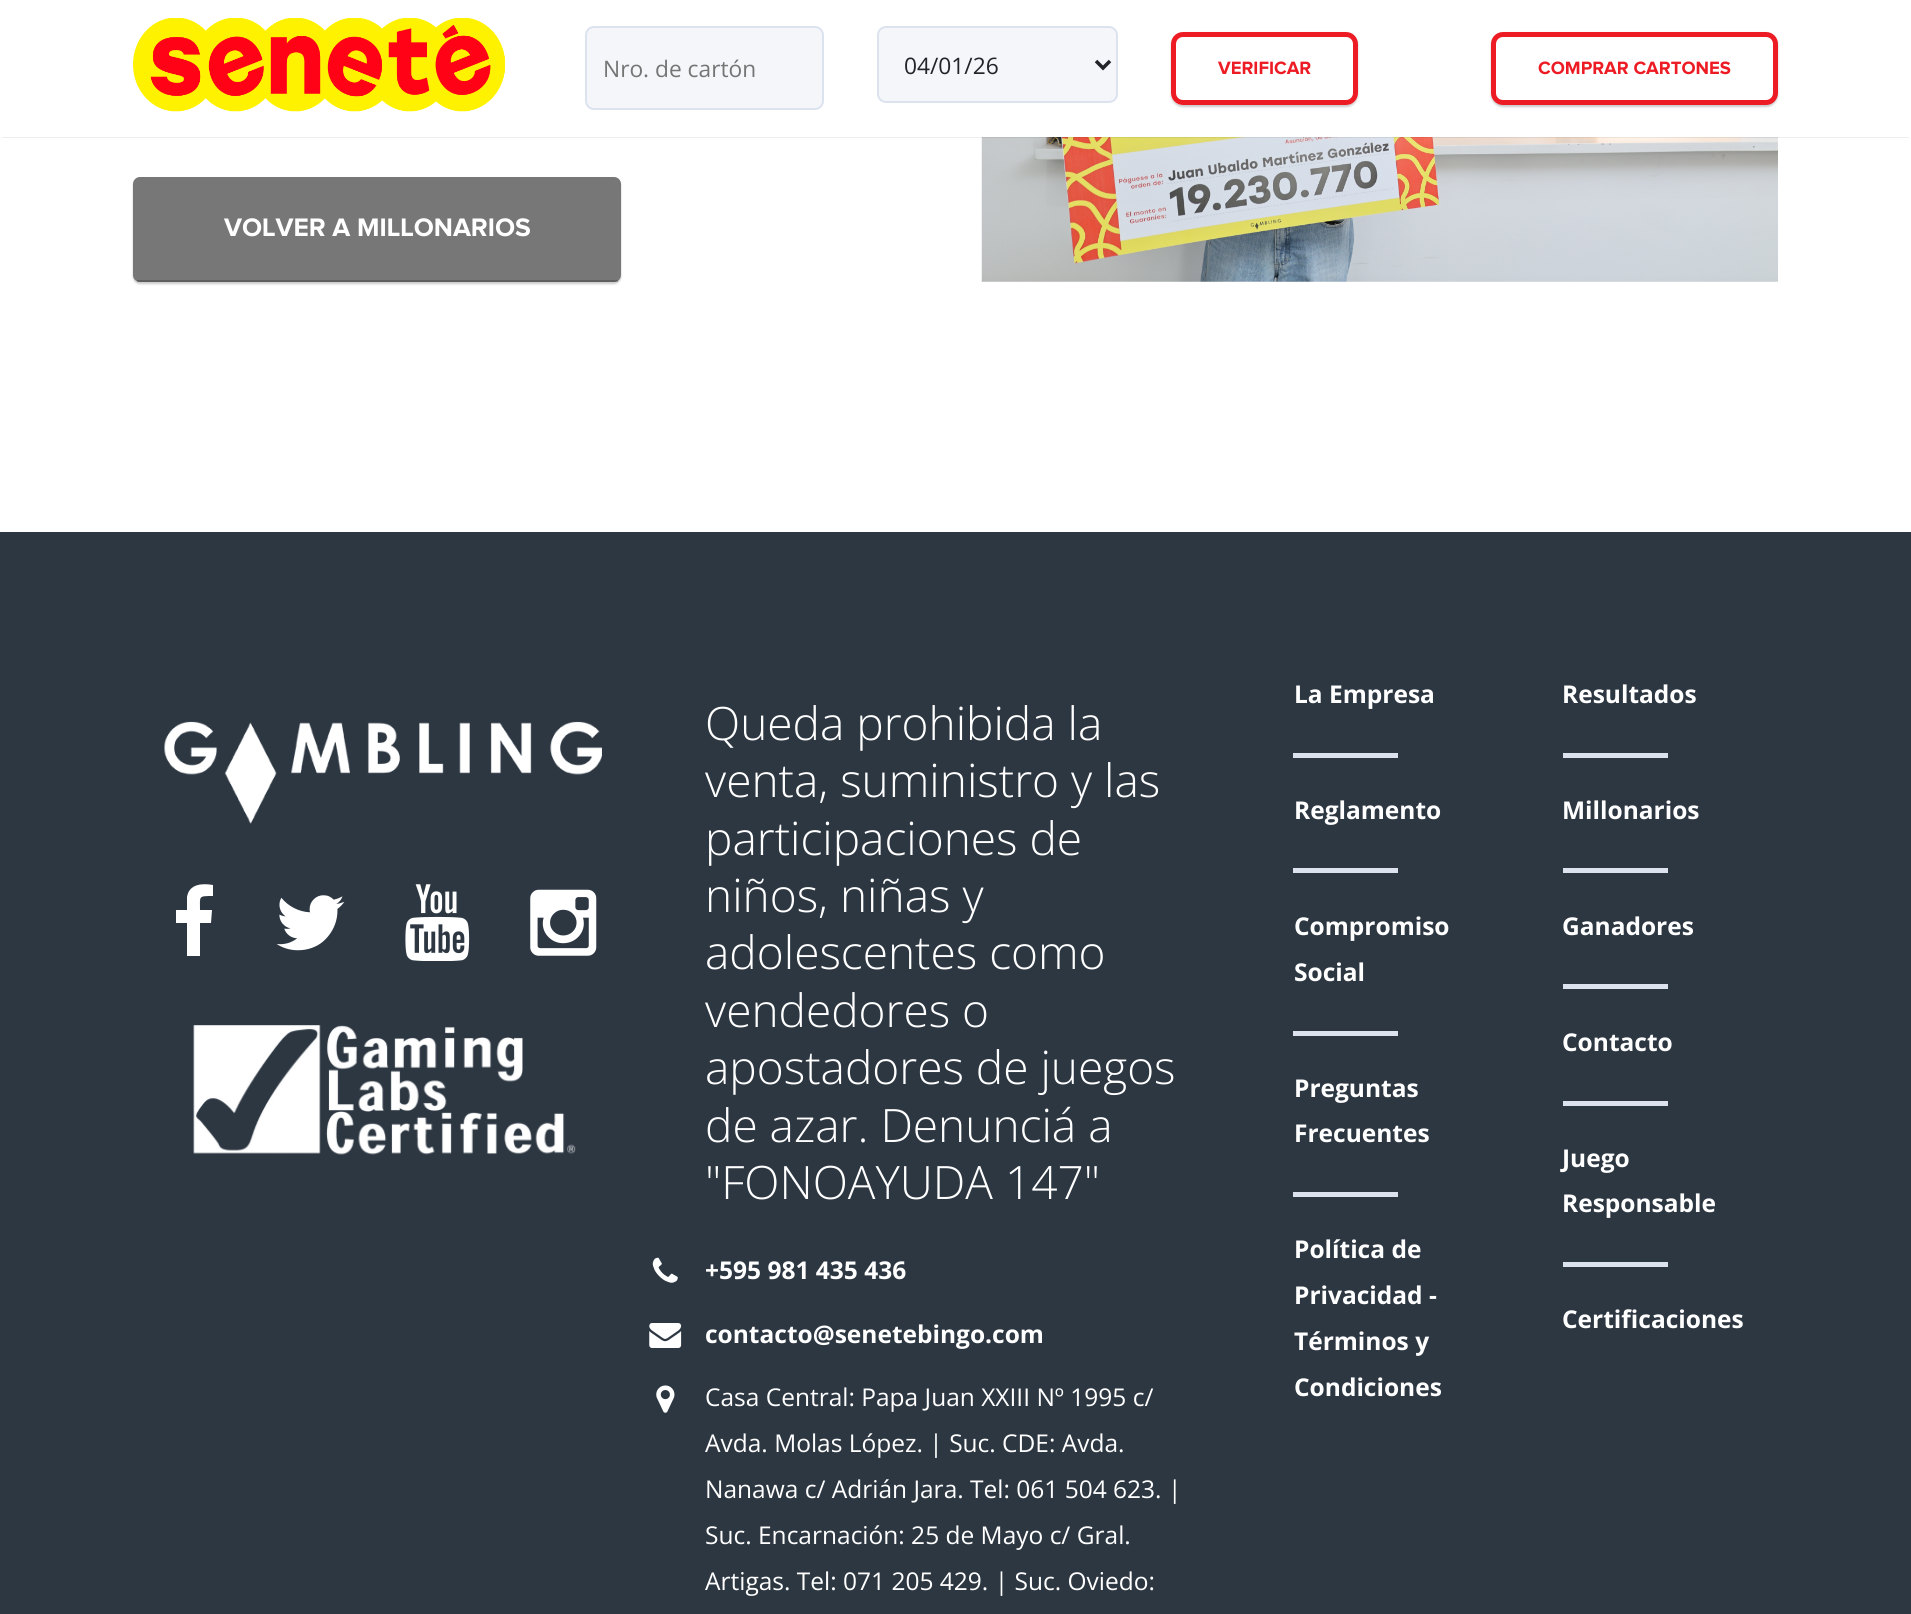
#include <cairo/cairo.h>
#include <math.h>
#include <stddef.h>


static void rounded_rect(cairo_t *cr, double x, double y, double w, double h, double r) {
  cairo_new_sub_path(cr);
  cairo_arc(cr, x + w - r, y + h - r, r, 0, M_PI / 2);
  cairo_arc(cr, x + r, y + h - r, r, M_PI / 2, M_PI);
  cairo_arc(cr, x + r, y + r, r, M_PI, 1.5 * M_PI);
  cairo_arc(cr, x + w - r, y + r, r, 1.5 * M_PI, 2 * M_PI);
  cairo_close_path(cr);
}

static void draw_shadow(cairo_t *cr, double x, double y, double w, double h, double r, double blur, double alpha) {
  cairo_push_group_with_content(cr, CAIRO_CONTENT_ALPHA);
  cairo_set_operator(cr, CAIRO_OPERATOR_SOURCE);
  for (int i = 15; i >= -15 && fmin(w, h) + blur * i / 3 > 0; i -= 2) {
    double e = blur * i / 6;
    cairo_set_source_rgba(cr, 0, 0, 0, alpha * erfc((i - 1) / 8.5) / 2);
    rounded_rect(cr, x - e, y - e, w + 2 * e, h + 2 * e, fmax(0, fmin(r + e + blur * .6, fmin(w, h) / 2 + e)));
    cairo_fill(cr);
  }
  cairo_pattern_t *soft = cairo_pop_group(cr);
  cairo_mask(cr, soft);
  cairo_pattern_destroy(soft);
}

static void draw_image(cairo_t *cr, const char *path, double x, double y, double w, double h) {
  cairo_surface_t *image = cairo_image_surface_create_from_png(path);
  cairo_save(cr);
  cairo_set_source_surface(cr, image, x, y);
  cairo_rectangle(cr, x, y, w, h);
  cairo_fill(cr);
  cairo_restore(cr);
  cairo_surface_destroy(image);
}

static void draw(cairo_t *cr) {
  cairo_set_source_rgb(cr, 1, 1, 1);
  cairo_paint(cr);
  draw_image(cr, "images/2.png", 981, 137, 797, 145);
  cairo_set_source_rgba(cr, 0, 0, 0, 0.07);
  cairo_rectangle(cr, 2, 137, 1907, 1);
  cairo_fill(cr);
  draw_image(cr, "images/1.png", 133, 18, 372, 94);
  cairo_set_source_rgb(cr, 244 / 255.0, 246 / 255.0, 250 / 255.0);
  rounded_rect(cr, 586, 27, 237, 82, 8);
  cairo_fill_preserve(cr);
  cairo_set_source_rgb(cr, 220 / 255.0, 227 / 255.0, 239 / 255.0);
  cairo_stroke(cr);
  cairo_set_source_rgb(cr, 244 / 255.0, 246 / 255.0, 250 / 255.0);
  rounded_rect(cr, 878, 27, 239, 75, 8);
  cairo_fill_preserve(cr);
  cairo_set_source_rgb(cr, 220 / 255.0, 227 / 255.0, 239 / 255.0);
  cairo_stroke(cr);
  cairo_new_path(cr);
  cairo_move_to(cr, 1096, 61);
  cairo_line_to(cr, 1103, 68);
  cairo_line_to(cr, 1110, 61);
  cairo_set_source_rgb(cr, 33 / 255.0, 36 / 255.0, 40 / 255.0);
  cairo_set_line_width(cr, 3.5);
  cairo_stroke(cr);
  cairo_save(cr);
  cairo_set_fill_rule(cr, CAIRO_FILL_RULE_EVEN_ODD);
  cairo_new_path(cr);
  cairo_move_to(cr, 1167, 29);
  cairo_line_to(cr, 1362, 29);
  cairo_line_to(cr, 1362, 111);
  cairo_line_to(cr, 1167, 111);
  cairo_close_path(cr);
  cairo_move_to(cr, 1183, 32);
  cairo_line_to(cr, 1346, 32);
  cairo_curve_to(cr, 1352.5, 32, 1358, 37.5, 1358, 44);
  cairo_line_to(cr, 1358, 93);
  cairo_curve_to(cr, 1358, 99.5, 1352.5, 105, 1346, 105);
  cairo_line_to(cr, 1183, 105);
  cairo_curve_to(cr, 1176.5, 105, 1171, 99.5, 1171, 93);
  cairo_line_to(cr, 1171, 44);
  cairo_curve_to(cr, 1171, 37.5, 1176.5, 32, 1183, 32);
  cairo_close_path(cr);
  cairo_clip(cr);
  cairo_set_source_rgb(cr, 0, 0, 0);
  draw_shadow(cr, 1171, 33, 187, 74, 12, 1, 0.21);
  cairo_restore(cr);
  rounded_rect(cr, 1173.5, 34.5, 182, 68, 9.5);
  cairo_set_source_rgb(cr, 237 / 255.0, 28 / 255.0, 36 / 255.0);
  cairo_set_line_width(cr, 5);
  cairo_stroke(cr);
  cairo_set_source_rgb(cr, 0, 0, 0);
  draw_shadow(cr, 1491, 33, 287, 74, 12, 1, 0.21);
  cairo_set_source_rgb(cr, 1, 1, 1);
  rounded_rect(cr, 1493.5, 34.5, 282, 68, 9.5);
  cairo_fill_preserve(cr);
  cairo_set_source_rgb(cr, 237 / 255.0, 28 / 255.0, 36 / 255.0);
  cairo_stroke(cr);
  cairo_set_source_rgb(cr, 0, 0, 0);
  draw_shadow(cr, 133, 179, 488, 105, 7, 1, 0.21);
  cairo_set_source_rgb(cr, 119 / 255.0, 119 / 255.0, 119 / 255.0);
  rounded_rect(cr, 133, 177, 488, 105, 7);
  cairo_fill(cr);
  cairo_set_source_rgba(cr, 0, 0, 0, 0.2);
  cairo_rectangle(cr, 137, 280, 481, 2);
  cairo_fill(cr);
  cairo_set_source_rgb(cr, 45 / 255.0, 55 / 255.0, 66 / 255.0);
  cairo_rectangle(cr, 0, 532, 1911, 1082);
  cairo_fill(cr);
  draw_image(cr, "images/3.png", 164, 721, 438, 103);
  cairo_set_source_rgb(cr, 1, 1, 1);
  cairo_new_path(cr);
  cairo_move_to(cr, 213, 885);
  cairo_line_to(cr, 213, 896);
  cairo_curve_to(cr, 198, 896, 200, 896, 200, 910);
  cairo_line_to(cr, 212, 910);
  cairo_line_to(cr, 211, 923);
  cairo_line_to(cr, 200, 923);
  cairo_line_to(cr, 200, 956);
  cairo_line_to(cr, 187, 956);
  cairo_line_to(cr, 187, 923);
  cairo_line_to(cr, 176, 923);
  cairo_line_to(cr, 176, 910);
  cairo_line_to(cr, 187, 910);
  cairo_line_to(cr, 187, 897);
  cairo_curve_to(cr, 189, 884, 202, 883, 213, 885);
  cairo_close_path(cr);
  cairo_fill(cr);
  draw_image(cr, "images/4.png", 276, 895, 69, 56);
  draw_image(cr, "images/5.png", 405, 884, 65, 77);
  draw_image(cr, "images/6.png", 530, 889, 67, 67);
  draw_image(cr, "images/7.png", 193, 1025, 383, 130);
  draw_image(cr, "images/8.png", 652, 1257, 26, 26);
  draw_image(cr, "images/9.png", 649, 1323, 33, 25);
  draw_image(cr, "images/10.png", 656, 1385, 19, 28);
  cairo_set_source_rgb(cr, 220 / 255.0, 227 / 255.0, 239 / 255.0);
  cairo_rectangle(cr, 1293, 753, 105, 5);
  cairo_fill(cr);
  cairo_rectangle(cr, 1293, 868, 105, 5);
  cairo_fill(cr);
  cairo_rectangle(cr, 1293, 1031, 105, 5);
  cairo_fill(cr);
  cairo_rectangle(cr, 1293, 1192, 105, 5);
  cairo_fill(cr);
  cairo_rectangle(cr, 1563, 753, 105, 5);
  cairo_fill(cr);
  cairo_rectangle(cr, 1563, 868, 105, 5);
  cairo_fill(cr);
  cairo_rectangle(cr, 1563, 984, 105, 5);
  cairo_fill(cr);
  cairo_rectangle(cr, 1563, 1101, 105, 5);
  cairo_fill(cr);
  cairo_rectangle(cr, 1563, 1262, 105, 5);
  cairo_fill(cr);
  cairo_select_font_face(cr, "Open Sans", CAIRO_FONT_SLANT_NORMAL, CAIRO_FONT_WEIGHT_NORMAL);
  cairo_set_font_size(cr, 22.75);
  cairo_set_source_rgb(cr, 117 / 255.0, 117 / 255.0, 117 / 255.0);
  cairo_move_to(cr, 603, 77);
  cairo_show_text(cr, "Nro. de cartón");
  cairo_set_source_rgb(cr, 33 / 255.0, 36 / 255.0, 40 / 255.0);
  cairo_move_to(cr, 904, 74);
  cairo_show_text(cr, "04/01/26");
  cairo_select_font_face(cr, "Proxima Nova", CAIRO_FONT_SLANT_NORMAL, CAIRO_FONT_WEIGHT_BOLD);
  cairo_set_font_size(cr, 18.5);
  cairo_set_source_rgb(cr, 237 / 255.0, 28 / 255.0, 36 / 255.0);
  cairo_move_to(cr, 1218, 74);
  cairo_show_text(cr, "VERIFICAR");
  cairo_move_to(cr, 1538, 74);
  cairo_show_text(cr, "COMPRAR CARTONES");
  cairo_set_font_size(cr, 26.25);
  cairo_set_source_rgb(cr, 1, 1, 1);
  cairo_move_to(cr, 224, 236);
  cairo_show_text(cr, "VOLVER A MILLONARIOS");
  cairo_select_font_face(cr, "Open Sans Light", CAIRO_FONT_SLANT_NORMAL, CAIRO_FONT_WEIGHT_NORMAL);
  cairo_set_font_size(cr, 46);
  cairo_move_to(cr, 705, 740);
  cairo_show_text(cr, "Queda prohibida la");
  cairo_move_to(cr, 705, 797);
  cairo_show_text(cr, "venta, suministro y las");
  cairo_move_to(cr, 705, 855);
  cairo_show_text(cr, "participaciones de");
  cairo_move_to(cr, 705, 912);
  cairo_show_text(cr, "niños, niñas y");
  cairo_move_to(cr, 705, 969);
  cairo_show_text(cr, "adolescentes como");
  cairo_move_to(cr, 705, 1027);
  cairo_show_text(cr, "vendedores o");
  cairo_move_to(cr, 705, 1084);
  cairo_show_text(cr, "apostadores de juegos");
  cairo_move_to(cr, 705, 1142);
  cairo_show_text(cr, "de azar. Denunciá a");
  cairo_move_to(cr, 705, 1199);
  cairo_show_text(cr, "\"FONOAYUDA 147\"");
  cairo_select_font_face(cr, "Open Sans", CAIRO_FONT_SLANT_NORMAL, CAIRO_FONT_WEIGHT_BOLD);
  cairo_set_font_size(cr, 24.5);
  cairo_move_to(cr, 705, 1279);
  cairo_show_text(cr, "+595 981 435 436");
  cairo_move_to(cr, 705, 1343);
  cairo_show_text(cr, "contacto@senetebingo.com");
  cairo_select_font_face(cr, "Open Sans", CAIRO_FONT_SLANT_NORMAL, CAIRO_FONT_WEIGHT_NORMAL);
  cairo_move_to(cr, 705, 1406);
  cairo_show_text(cr, "Casa Central: Papa Juan XXIII Nº 1995 c/");
  cairo_move_to(cr, 705, 1452);
  cairo_show_text(cr, "Avda. Molas López. | Suc. CDE: Avda.");
  cairo_move_to(cr, 705, 1498);
  cairo_show_text(cr, "Nanawa c/ Adrián Jara. Tel: 061 504 623. |");
  cairo_move_to(cr, 705, 1544);
  cairo_show_text(cr, "Suc. Encarnación: 25 de Mayo c/ Gral.");
  cairo_move_to(cr, 705, 1590);
  cairo_show_text(cr, "Artigas. Tel: 071 205 429. | Suc. Oviedo:");
  cairo_select_font_face(cr, "Open Sans", CAIRO_FONT_SLANT_NORMAL, CAIRO_FONT_WEIGHT_BOLD);
  cairo_move_to(cr, 1294, 703);
  cairo_show_text(cr, "La Empresa");
  cairo_move_to(cr, 1294, 819);
  cairo_show_text(cr, "Reglamento");
  cairo_move_to(cr, 1294, 935);
  cairo_show_text(cr, "Compromiso");
  cairo_move_to(cr, 1294, 981);
  cairo_show_text(cr, "Social");
  cairo_move_to(cr, 1294, 1097);
  cairo_show_text(cr, "Preguntas");
  cairo_move_to(cr, 1294, 1142);
  cairo_show_text(cr, "Frecuentes");
  cairo_move_to(cr, 1294, 1258);
  cairo_show_text(cr, "Política de");
  cairo_move_to(cr, 1294, 1304);
  cairo_show_text(cr, "Privacidad -");
  cairo_move_to(cr, 1294, 1350);
  cairo_show_text(cr, "Términos y");
  cairo_move_to(cr, 1294, 1396);
  cairo_show_text(cr, "Condiciones");
  cairo_move_to(cr, 1562, 703);
  cairo_show_text(cr, "Resultados");
  cairo_move_to(cr, 1562, 819);
  cairo_show_text(cr, "Millonarios");
  cairo_move_to(cr, 1562, 935);
  cairo_show_text(cr, "Ganadores");
  cairo_move_to(cr, 1562, 1051);
  cairo_show_text(cr, "Contacto");
  cairo_move_to(cr, 1562, 1167);
  cairo_show_text(cr, "Juego");
  cairo_move_to(cr, 1562, 1212);
  cairo_show_text(cr, "Responsable");
  cairo_move_to(cr, 1562, 1328);
  cairo_show_text(cr, "Certificaciones");
}

int main(void) {
  cairo_surface_t *surface = cairo_image_surface_create(CAIRO_FORMAT_RGB24, 1911, 1614);
  cairo_t *cr = cairo_create(surface);
  cairo_font_options_t *options = cairo_font_options_create();
  cairo_font_options_set_hint_metrics(options, CAIRO_HINT_METRICS_OFF);
  cairo_font_options_set_hint_style(options, CAIRO_HINT_STYLE_NONE);
  cairo_set_font_options(cr, options);
  cairo_set_miter_limit(cr, 4);
  draw(cr);
  cairo_surface_write_to_png(surface, "out.png");
  cairo_font_options_destroy(options);
  cairo_destroy(cr);
  cairo_surface_destroy(surface);
  return 0;
}
